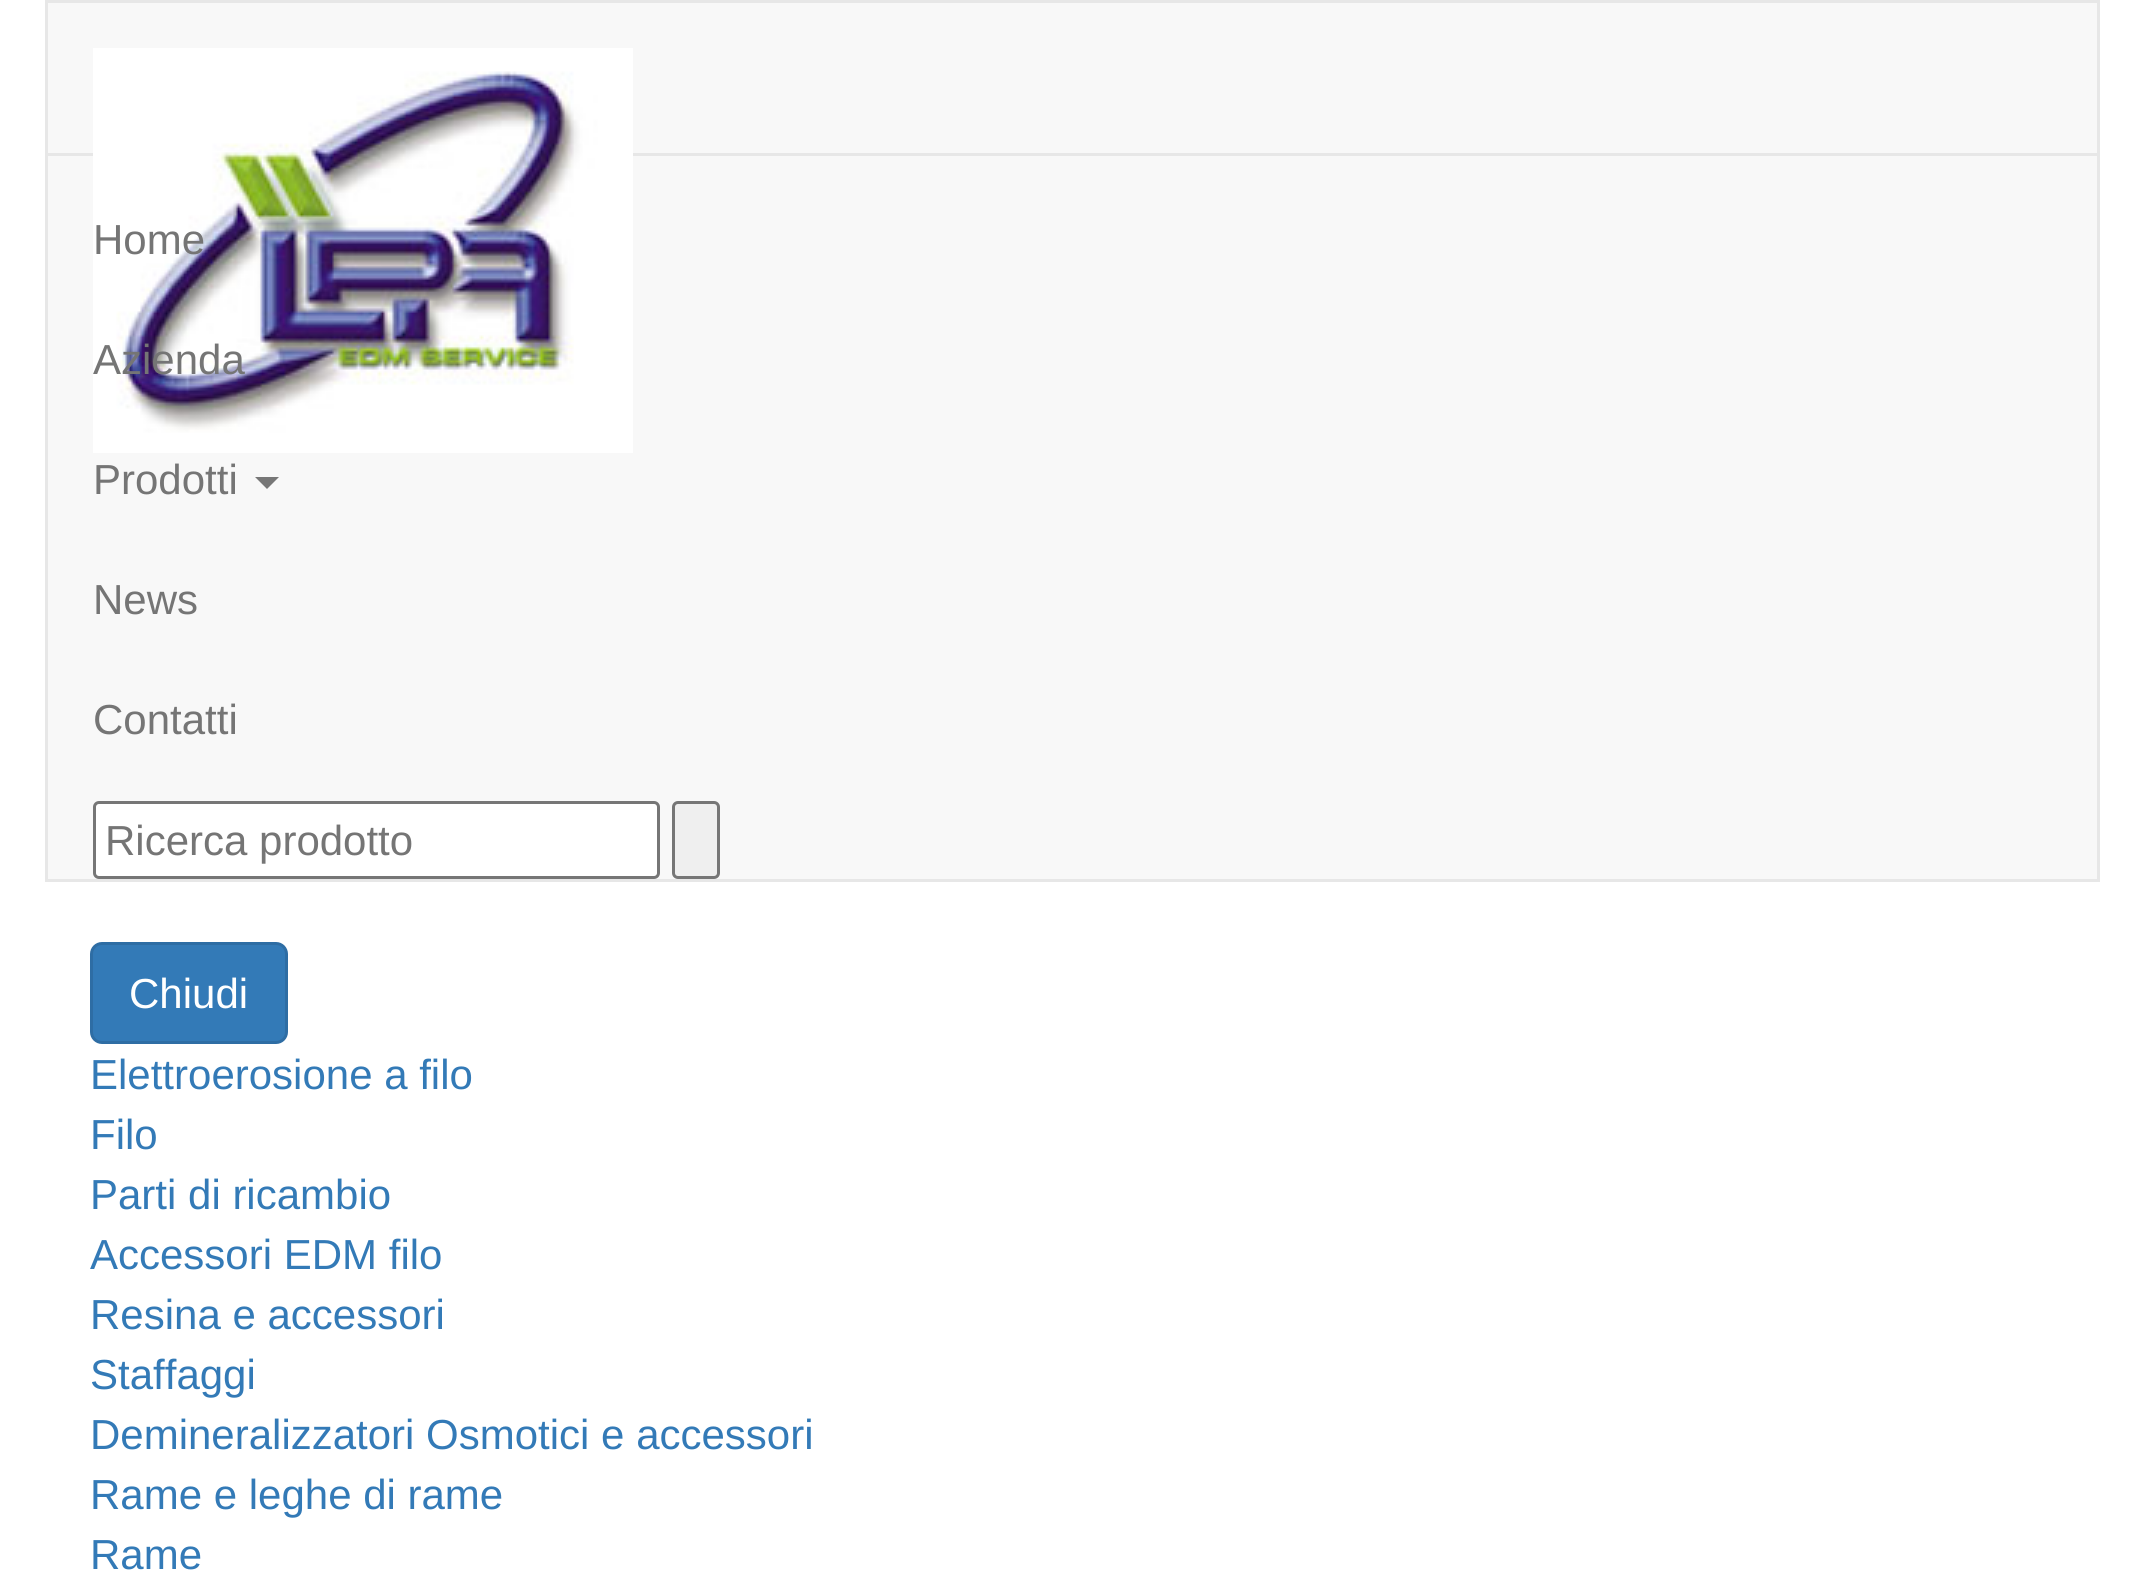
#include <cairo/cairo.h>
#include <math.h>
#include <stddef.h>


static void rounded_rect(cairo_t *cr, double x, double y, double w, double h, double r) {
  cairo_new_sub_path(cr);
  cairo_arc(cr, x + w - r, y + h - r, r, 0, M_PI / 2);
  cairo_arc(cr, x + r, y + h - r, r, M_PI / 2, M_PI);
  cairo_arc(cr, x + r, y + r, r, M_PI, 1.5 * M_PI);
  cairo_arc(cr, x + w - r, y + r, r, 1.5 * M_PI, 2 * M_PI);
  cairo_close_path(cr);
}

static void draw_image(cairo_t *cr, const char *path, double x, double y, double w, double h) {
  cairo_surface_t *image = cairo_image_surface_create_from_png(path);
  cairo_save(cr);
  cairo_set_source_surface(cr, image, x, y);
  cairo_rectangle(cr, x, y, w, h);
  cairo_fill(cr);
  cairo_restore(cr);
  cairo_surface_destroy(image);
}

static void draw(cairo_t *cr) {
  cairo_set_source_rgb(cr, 1, 1, 1);
  cairo_paint(cr);
  cairo_set_source_rgb(cr, 248 / 255.0, 248 / 255.0, 248 / 255.0);
  cairo_rectangle(cr, 46.5, 1.5, 2052, 879);
  cairo_fill_preserve(cr);
  cairo_set_source_rgb(cr, 231 / 255.0, 231 / 255.0, 231 / 255.0);
  cairo_set_line_width(cr, 3);
  cairo_stroke(cr);
  cairo_rectangle(cr, 48, 153, 2049, 3);
  cairo_fill(cr);
  draw_image(cr, "images/1.png", 93, 48, 540, 405);
  cairo_set_source_rgb(cr, 119 / 255.0, 119 / 255.0, 119 / 255.0);
  cairo_new_path(cr);
  cairo_move_to(cr, 255, 477);
  cairo_line_to(cr, 279, 477);
  cairo_line_to(cr, 267, 489);
  cairo_close_path(cr);
  cairo_fill(cr);
  cairo_set_source_rgb(cr, 1, 1, 1);
  rounded_rect(cr, 94.5, 802.5, 564, 75, 4.5);
  cairo_fill_preserve(cr);
  cairo_set_source_rgb(cr, 118 / 255.0, 118 / 255.0, 118 / 255.0);
  cairo_stroke(cr);
  cairo_set_source_rgb(cr, 239 / 255.0, 239 / 255.0, 239 / 255.0);
  rounded_rect(cr, 673.5, 802.5, 45, 75, 4.5);
  cairo_fill_preserve(cr);
  cairo_set_source_rgb(cr, 118 / 255.0, 118 / 255.0, 118 / 255.0);
  cairo_stroke(cr);
  cairo_set_source_rgb(cr, 51 / 255.0, 122 / 255.0, 183 / 255.0);
  rounded_rect(cr, 91.5, 943.5, 195, 99, 10.5);
  cairo_fill_preserve(cr);
  cairo_set_source_rgb(cr, 46 / 255.0, 109 / 255.0, 164 / 255.0);
  cairo_stroke(cr);
  cairo_select_font_face(cr, "Liberation Sans", CAIRO_FONT_SLANT_NORMAL, CAIRO_FONT_WEIGHT_NORMAL);
  cairo_set_font_size(cr, 42);
  cairo_set_source_rgb(cr, 117 / 255.0, 117 / 255.0, 117 / 255.0);
  cairo_move_to(cr, 93, 254);
  cairo_show_text(cr, "Home");
  cairo_move_to(cr, 93, 374);
  cairo_show_text(cr, "Azienda");
  cairo_move_to(cr, 93, 494);
  cairo_show_text(cr, "Prodotti");
  cairo_move_to(cr, 93, 614);
  cairo_show_text(cr, "News");
  cairo_move_to(cr, 93, 734);
  cairo_show_text(cr, "Contatti");
  cairo_move_to(cr, 105, 855);
  cairo_show_text(cr, "Ricerca prodotto");
  cairo_set_source_rgb(cr, 1, 1, 1);
  cairo_move_to(cr, 129, 1008);
  cairo_show_text(cr, "Chiudi");
  cairo_set_source_rgb(cr, 51 / 255.0, 122 / 255.0, 183 / 255.0);
  cairo_move_to(cr, 90, 1089);
  cairo_show_text(cr, "Elettroerosione a filo");
  cairo_move_to(cr, 90, 1149);
  cairo_show_text(cr, "Filo");
  cairo_move_to(cr, 90, 1209);
  cairo_show_text(cr, "Parti di ricambio");
  cairo_move_to(cr, 90, 1269);
  cairo_show_text(cr, "Accessori EDM filo");
  cairo_move_to(cr, 90, 1329);
  cairo_show_text(cr, "Resina e accessori");
  cairo_move_to(cr, 90, 1389);
  cairo_show_text(cr, "Staffaggi");
  cairo_move_to(cr, 90, 1449);
  cairo_show_text(cr, "Demineralizzatori Osmotici e accessori");
  cairo_move_to(cr, 90, 1509);
  cairo_show_text(cr, "Rame e leghe di rame");
  cairo_move_to(cr, 90, 1569);
  cairo_show_text(cr, "Rame");
}

int main(void) {
  cairo_surface_t *surface = cairo_image_surface_create(CAIRO_FORMAT_RGB24, 2145, 1585);
  cairo_t *cr = cairo_create(surface);
  cairo_font_options_t *options = cairo_font_options_create();
  cairo_font_options_set_hint_metrics(options, CAIRO_HINT_METRICS_OFF);
  cairo_font_options_set_hint_style(options, CAIRO_HINT_STYLE_NONE);
  cairo_set_font_options(cr, options);
  cairo_set_miter_limit(cr, 4);
  draw(cr);
  cairo_surface_write_to_png(surface, "out.png");
  cairo_font_options_destroy(options);
  cairo_destroy(cr);
  cairo_surface_destroy(surface);
  return 0;
}
